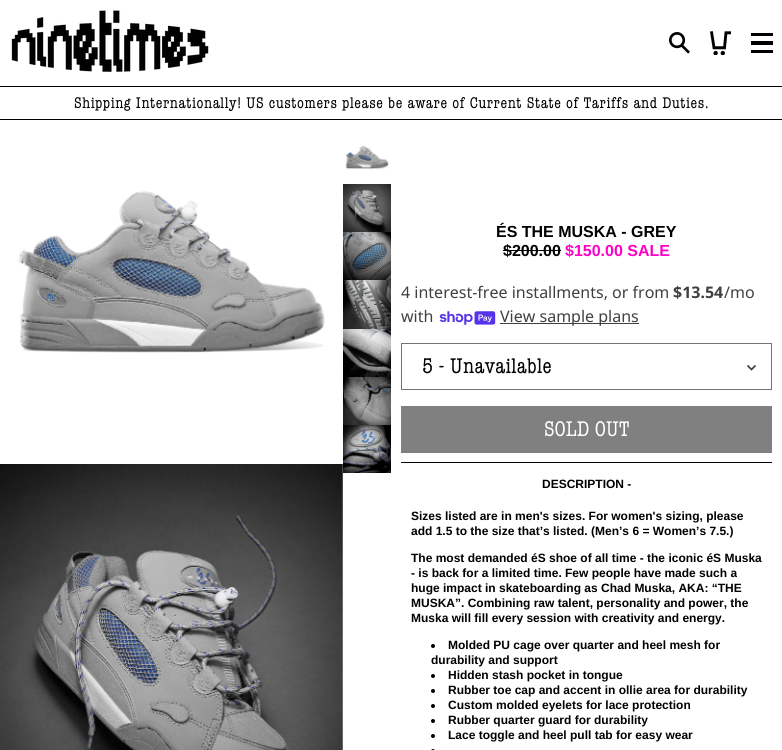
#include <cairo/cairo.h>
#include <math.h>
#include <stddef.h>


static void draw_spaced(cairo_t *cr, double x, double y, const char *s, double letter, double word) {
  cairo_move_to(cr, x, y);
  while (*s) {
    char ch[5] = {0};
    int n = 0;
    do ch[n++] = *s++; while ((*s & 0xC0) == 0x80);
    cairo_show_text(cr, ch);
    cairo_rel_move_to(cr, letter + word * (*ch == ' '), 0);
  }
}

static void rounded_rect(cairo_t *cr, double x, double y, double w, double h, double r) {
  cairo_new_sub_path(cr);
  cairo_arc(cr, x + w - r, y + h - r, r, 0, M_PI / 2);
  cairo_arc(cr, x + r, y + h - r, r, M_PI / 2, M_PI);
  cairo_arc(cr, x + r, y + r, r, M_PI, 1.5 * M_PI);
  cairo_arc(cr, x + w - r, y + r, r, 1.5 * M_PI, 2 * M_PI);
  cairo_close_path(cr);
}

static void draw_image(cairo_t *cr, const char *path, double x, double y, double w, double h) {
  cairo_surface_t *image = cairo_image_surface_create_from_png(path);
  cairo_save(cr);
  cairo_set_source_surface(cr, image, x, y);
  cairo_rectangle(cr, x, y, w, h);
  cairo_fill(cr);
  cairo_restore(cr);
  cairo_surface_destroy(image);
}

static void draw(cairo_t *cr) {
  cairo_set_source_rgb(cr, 1, 1, 1);
  cairo_paint(cr);
  cairo_set_source_rgb(cr, 0, 0, 0);
  cairo_rectangle(cr, 0, 86, 782, 1);
  cairo_fill(cr);
  draw_image(cr, "images/1.png", 11, 10, 198, 62);
  draw_image(cr, "images/2.png", 669, 32, 21, 22);
  draw_image(cr, "images/3.png", 710, 31, 21, 24);
  cairo_rectangle(cr, 751, 33, 22, 3);
  cairo_fill(cr);
  cairo_rectangle(cr, 751, 50, 22, 3);
  cairo_fill(cr);
  cairo_rectangle(cr, 751, 41, 22, 4);
  cairo_fill(cr);
  cairo_rectangle(cr, 0, 119, 782, 1);
  cairo_fill(cr);
  draw_image(cr, "images/4.png", 18, 191, 307, 162);
  draw_image(cr, "images/5.png", 0, 464, 343, 286);
  draw_image(cr, "images/6.png", 345, 146, 44, 24);
  draw_image(cr, "images/7.png", 343, 184, 48, 48);
  draw_image(cr, "images/8.png", 343, 232, 48, 48);
  draw_image(cr, "images/9.png", 343, 280, 48, 49);
  draw_image(cr, "images/10.png", 343, 329, 48, 48);
  draw_image(cr, "images/11.png", 343, 377, 48, 48);
  draw_image(cr, "images/12.png", 343, 425, 48, 48);
  cairo_rectangle(cr, 503, 250, 58, 1);
  cairo_fill(cr);
  draw_image(cr, "images/13.png", 439, 311, 57, 14);
  cairo_set_source_rgb(cr, 64 / 255.0, 64 / 255.0, 64 / 255.0);
  cairo_rectangle(cr, 500, 323, 139, 1);
  cairo_fill(cr);
  cairo_new_path(cr);
  cairo_move_to(cr, 747.5, 365.5);
  cairo_line_to(cr, 751.5, 369.5);
  cairo_line_to(cr, 755.5, 365.5);
  cairo_set_line_width(cr, 1.7);
  cairo_stroke(cr);
  cairo_rectangle(cr, 401.5, 343.5, 370, 46);
  cairo_set_source_rgb(cr, 115 / 255.0, 115 / 255.0, 115 / 255.0);
  cairo_set_line_width(cr, 1);
  cairo_stroke(cr);
  cairo_set_source_rgb(cr, 128 / 255.0, 128 / 255.0, 128 / 255.0);
  cairo_rectangle(cr, 401, 406, 371, 47);
  cairo_fill(cr);
  cairo_set_source_rgb(cr, 0, 0, 0);
  cairo_rectangle(cr, 401, 462, 371, 1);
  cairo_fill(cr);
  cairo_arc(cr, 433, 646, 2, 0, 2 * M_PI);
  cairo_fill(cr);
  cairo_arc(cr, 433, 676, 2, 0, 2 * M_PI);
  cairo_fill(cr);
  cairo_arc(cr, 433, 691, 2, 0, 2 * M_PI);
  cairo_fill(cr);
  cairo_arc(cr, 433, 706, 2, 0, 2 * M_PI);
  cairo_fill(cr);
  cairo_arc(cr, 433, 721, 2, 0, 2 * M_PI);
  cairo_fill(cr);
  cairo_arc(cr, 433, 736, 2, 0, 2 * M_PI);
  cairo_fill(cr);
  rounded_rect(cr, 431, 749, 4, 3, 2);
  cairo_fill(cr);
  cairo_select_font_face(cr, "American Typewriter", CAIRO_FONT_SLANT_NORMAL, CAIRO_FONT_WEIGHT_NORMAL);
  cairo_set_font_size(cr, 16);
  draw_spaced(cr, 74, 108, "Shipping Internationally! US customers please be aware of Current State of Tariffs and Duties.", 0.6, 0);
  cairo_select_font_face(cr, "Liberation Sans", CAIRO_FONT_SLANT_NORMAL, CAIRO_FONT_WEIGHT_BOLD);
  cairo_move_to(cr, 496, 237);
  cairo_show_text(cr, "ÉS THE MUSKA - GREY");
  cairo_move_to(cr, 503, 256);
  cairo_show_text(cr, "$200.00");
  cairo_set_source_rgb(cr, 1, 0, 199 / 255.0);
  cairo_move_to(cr, 565, 256);
  cairo_show_text(cr, "$150.00 SALE");
  cairo_select_font_face(cr, "Noto Sans", CAIRO_FONT_SLANT_NORMAL, CAIRO_FONT_WEIGHT_NORMAL);
  cairo_set_source_rgb(cr, 64 / 255.0, 64 / 255.0, 64 / 255.0);
  cairo_move_to(cr, 401, 298);
  cairo_show_text(cr, "4 interest-free installments, or from");
  cairo_select_font_face(cr, "Noto Sans", CAIRO_FONT_SLANT_NORMAL, CAIRO_FONT_WEIGHT_BOLD);
  cairo_move_to(cr, 673, 298);
  cairo_show_text(cr, "$13.54");
  cairo_select_font_face(cr, "Noto Sans", CAIRO_FONT_SLANT_NORMAL, CAIRO_FONT_WEIGHT_NORMAL);
  cairo_move_to(cr, 724, 298);
  cairo_show_text(cr, "/mo");
  cairo_move_to(cr, 401, 322);
  cairo_show_text(cr, "with");
  cairo_move_to(cr, 500, 322);
  cairo_show_text(cr, "View sample plans");
  cairo_select_font_face(cr, "American Typewriter", CAIRO_FONT_SLANT_NORMAL, CAIRO_FONT_WEIGHT_NORMAL);
  cairo_set_font_size(cr, 22);
  cairo_set_source_rgb(cr, 0, 0, 0);
  draw_spaced(cr, 422, 373, "5 - Unavailable", 0.4, 0);
  cairo_set_source_rgb(cr, 1, 1, 1);
  cairo_move_to(cr, 544, 436);
  cairo_show_text(cr, "SOLD OUT");
  cairo_select_font_face(cr, "Liberation Sans", CAIRO_FONT_SLANT_NORMAL, CAIRO_FONT_WEIGHT_BOLD);
  cairo_set_font_size(cr, 12);
  cairo_set_source_rgb(cr, 0, 0, 0);
  cairo_move_to(cr, 542, 488);
  cairo_show_text(cr, "DESCRIPTION -");
  cairo_move_to(cr, 411, 520);
  cairo_show_text(cr, "Sizes listed are in men's sizes. For women's sizing, please");
  cairo_move_to(cr, 411, 535);
  cairo_show_text(cr, "add 1.5 to the size that’s listed. (Men’s 6 = Women’s 7.5.)");
  cairo_move_to(cr, 411, 562);
  cairo_show_text(cr, "The most demanded éS shoe of all time - the iconic éS Muska");
  cairo_move_to(cr, 411, 577);
  cairo_show_text(cr, "- is back for a limited time. Few people have made such a");
  cairo_move_to(cr, 411, 592);
  cairo_show_text(cr, "huge impact in skateboarding as Chad Muska, AKA: “THE");
  cairo_move_to(cr, 411, 607);
  cairo_show_text(cr, "MUSKA”. Combining raw talent, personality and power, the");
  cairo_move_to(cr, 411, 622);
  cairo_show_text(cr, "Muska will fill every session with creativity and energy.");
  cairo_move_to(cr, 448, 649);
  cairo_show_text(cr, "Molded PU cage over quarter and heel mesh for");
  cairo_move_to(cr, 431, 664);
  cairo_show_text(cr, "durability and support");
  cairo_move_to(cr, 448, 679);
  cairo_show_text(cr, "Hidden stash pocket in tongue");
  cairo_move_to(cr, 448, 694);
  cairo_show_text(cr, "Rubber toe cap and accent in ollie area for durability");
  cairo_move_to(cr, 448, 709);
  cairo_show_text(cr, "Custom molded eyelets for lace protection");
  cairo_move_to(cr, 448, 724);
  cairo_show_text(cr, "Rubber quarter guard for durability");
  cairo_move_to(cr, 448, 739);
  cairo_show_text(cr, "Lace toggle and heel pull tab for easy wear");
}

int main(void) {
  cairo_surface_t *surface = cairo_image_surface_create(CAIRO_FORMAT_RGB24, 782, 750);
  cairo_t *cr = cairo_create(surface);
  cairo_font_options_t *options = cairo_font_options_create();
  cairo_font_options_set_hint_metrics(options, CAIRO_HINT_METRICS_OFF);
  cairo_font_options_set_hint_style(options, CAIRO_HINT_STYLE_NONE);
  cairo_set_font_options(cr, options);
  cairo_set_miter_limit(cr, 4);
  draw(cr);
  cairo_surface_write_to_png(surface, "out.png");
  cairo_font_options_destroy(options);
  cairo_destroy(cr);
  cairo_surface_destroy(surface);
  return 0;
}
